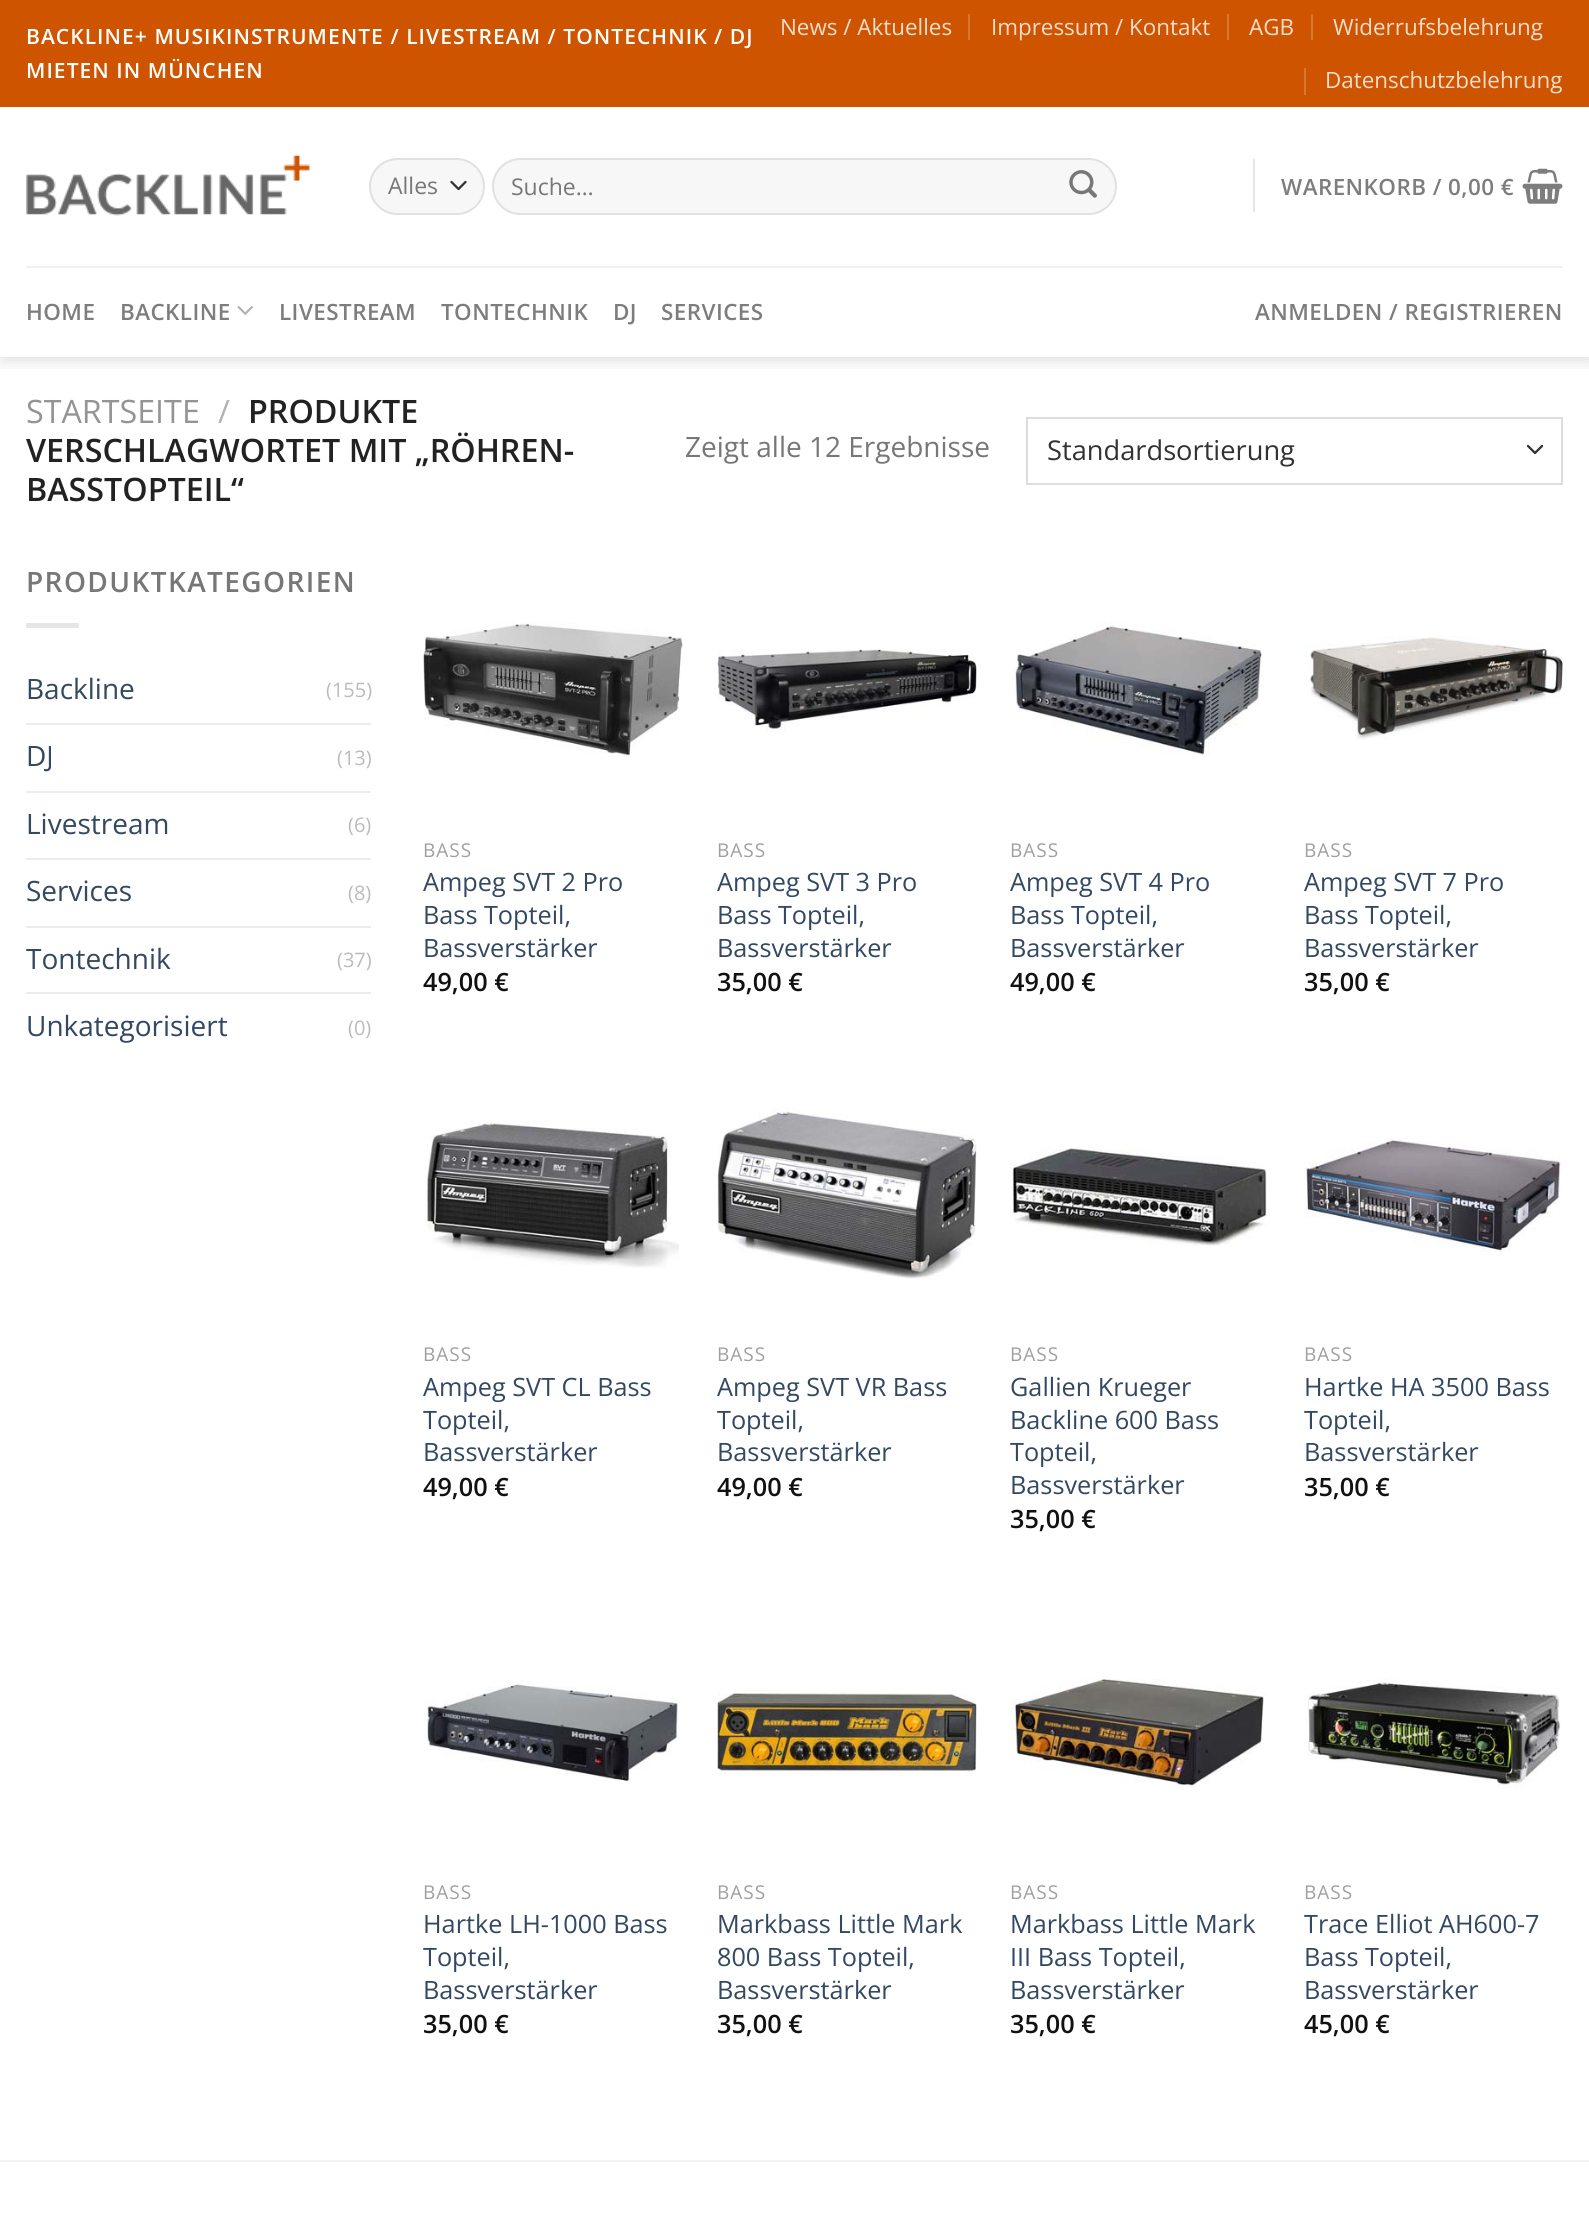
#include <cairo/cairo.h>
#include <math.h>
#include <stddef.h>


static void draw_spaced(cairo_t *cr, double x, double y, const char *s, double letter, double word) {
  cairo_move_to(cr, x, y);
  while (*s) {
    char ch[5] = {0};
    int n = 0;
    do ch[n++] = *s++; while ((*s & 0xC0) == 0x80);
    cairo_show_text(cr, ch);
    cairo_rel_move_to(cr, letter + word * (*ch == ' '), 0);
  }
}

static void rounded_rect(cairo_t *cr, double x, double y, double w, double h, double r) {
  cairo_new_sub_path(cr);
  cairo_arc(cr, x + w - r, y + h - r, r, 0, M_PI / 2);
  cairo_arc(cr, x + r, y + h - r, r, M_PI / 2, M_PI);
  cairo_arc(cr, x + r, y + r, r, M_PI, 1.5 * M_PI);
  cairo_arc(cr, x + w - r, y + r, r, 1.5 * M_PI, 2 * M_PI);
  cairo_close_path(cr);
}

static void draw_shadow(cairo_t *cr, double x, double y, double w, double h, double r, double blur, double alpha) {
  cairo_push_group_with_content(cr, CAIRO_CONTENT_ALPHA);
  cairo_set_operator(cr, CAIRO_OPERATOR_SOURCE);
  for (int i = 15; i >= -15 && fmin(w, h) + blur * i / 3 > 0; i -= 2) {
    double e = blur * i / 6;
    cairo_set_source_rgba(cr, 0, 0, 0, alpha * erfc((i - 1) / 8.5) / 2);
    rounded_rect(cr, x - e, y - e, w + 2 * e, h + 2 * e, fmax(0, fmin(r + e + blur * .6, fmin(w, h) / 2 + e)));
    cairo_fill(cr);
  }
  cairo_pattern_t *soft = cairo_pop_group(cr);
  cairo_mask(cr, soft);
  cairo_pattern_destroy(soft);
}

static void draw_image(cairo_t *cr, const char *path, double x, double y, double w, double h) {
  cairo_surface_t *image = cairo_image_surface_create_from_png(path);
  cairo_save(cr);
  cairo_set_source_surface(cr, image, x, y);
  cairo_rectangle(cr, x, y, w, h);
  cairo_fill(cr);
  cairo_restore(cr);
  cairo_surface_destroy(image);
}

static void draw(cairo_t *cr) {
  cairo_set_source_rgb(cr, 1, 1, 1);
  cairo_paint(cr);
  cairo_save(cr);
  cairo_rectangle(cr, 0, 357, 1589, 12);
  cairo_clip(cr);
  cairo_set_source_rgb(cr, 0, 0, 0);
  draw_shadow(cr, 2, 2, 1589, 357, 0, 9, 0.15);
  cairo_restore(cr);
  cairo_set_source_rgb(cr, 206 / 255.0, 84 / 255.0, 0);
  cairo_rectangle(cr, 0, 0, 1589, 107);
  cairo_fill(cr);
  cairo_set_source_rgb(cr, 216 / 255.0, 118 / 255.0, 51 / 255.0);
  cairo_rectangle(cr, 968, 14, 2, 26);
  cairo_fill(cr);
  cairo_rectangle(cr, 1227, 14, 2, 26);
  cairo_fill(cr);
  cairo_rectangle(cr, 1311, 14, 2, 26);
  cairo_fill(cr);
  cairo_rectangle(cr, 1304, 68, 2, 27);
  cairo_fill(cr);
  draw_image(cr, "images/1.png", 26, 155, 284, 61);
  cairo_set_source_rgb(cr, 247 / 255.0, 247 / 255.0, 247 / 255.0);
  rounded_rect(cr, 369, 158, 116, 57, 28.5);
  cairo_fill(cr);
  cairo_new_path(cr);
  cairo_move_to(cr, 451.5, 182);
  cairo_line_to(cr, 458.5, 189);
  cairo_line_to(cr, 465.5, 182);
  cairo_set_source_rgb(cr, 51 / 255.0, 51 / 255.0, 51 / 255.0);
  cairo_set_line_width(cr, 2.3);
  cairo_set_line_cap(cr, CAIRO_LINE_CAP_ROUND);
  cairo_set_line_join(cr, CAIRO_LINE_JOIN_ROUND);
  cairo_stroke(cr);
  rounded_rect(cr, 370, 159, 114, 55, 27.5);
  cairo_set_source_rgba(cr, 0, 0, 0, 0.09);
  cairo_set_line_width(cr, 2);
  cairo_set_line_cap(cr, CAIRO_LINE_CAP_BUTT);
  cairo_set_line_join(cr, CAIRO_LINE_JOIN_MITER);
  cairo_stroke(cr);
  cairo_set_source_rgb(cr, 247 / 255.0, 247 / 255.0, 247 / 255.0);
  rounded_rect(cr, 492, 158, 625, 57, 28.5);
  cairo_fill(cr);
  rounded_rect(cr, 493, 159, 623, 55, 27.5);
  cairo_set_source_rgba(cr, 0, 0, 0, 0.09);
  cairo_stroke(cr);
  draw_image(cr, "images/2.png", 1069, 170, 28, 28);
  cairo_set_source_rgb(cr, 230 / 255.0, 230 / 255.0, 230 / 255.0);
  cairo_rectangle(cr, 1253, 159, 2, 53);
  cairo_fill(cr);
  draw_image(cr, "images/3.png", 1522, 168, 41, 36);
  cairo_set_source_rgb(cr, 241 / 255.0, 241 / 255.0, 241 / 255.0);
  cairo_rectangle(cr, 26, 266, 1537, 2);
  cairo_fill(cr);
  draw_image(cr, "images/4.png", 237, 306, 16, 9);
  cairo_new_path(cr);
  cairo_move_to(cr, 1528, 446);
  cairo_line_to(cr, 1535, 453);
  cairo_line_to(cr, 1542, 446);
  cairo_set_source_rgb(cr, 51 / 255.0, 51 / 255.0, 51 / 255.0);
  cairo_set_line_width(cr, 2.3);
  cairo_set_line_cap(cr, CAIRO_LINE_CAP_ROUND);
  cairo_set_line_join(cr, CAIRO_LINE_JOIN_ROUND);
  cairo_stroke(cr);
  cairo_rectangle(cr, 1027, 418, 535, 66);
  cairo_set_source_rgb(cr, 221 / 255.0, 221 / 255.0, 221 / 255.0);
  cairo_set_line_width(cr, 2);
  cairo_set_line_cap(cr, CAIRO_LINE_CAP_BUTT);
  cairo_set_line_join(cr, CAIRO_LINE_JOIN_MITER);
  cairo_stroke(cr);
  cairo_set_source_rgb(cr, 230 / 255.0, 230 / 255.0, 230 / 255.0);
  cairo_rectangle(cr, 26, 623, 53, 5);
  cairo_fill(cr);
  cairo_set_source_rgb(cr, 236 / 255.0, 236 / 255.0, 236 / 255.0);
  cairo_rectangle(cr, 26, 723, 345, 2);
  cairo_fill(cr);
  cairo_rectangle(cr, 26, 791, 345, 2);
  cairo_fill(cr);
  cairo_rectangle(cr, 26, 858, 345, 2);
  cairo_fill(cr);
  cairo_rectangle(cr, 26, 926, 345, 2);
  cairo_fill(cr);
  cairo_rectangle(cr, 26, 992, 345, 2);
  cairo_fill(cr);
  draw_image(cr, "images/5.png", 423, 622, 260, 135);
  draw_image(cr, "images/6.png", 717, 649, 260, 83);
  draw_image(cr, "images/7.png", 1012, 622, 250, 133);
  draw_image(cr, "images/8.png", 1304, 636, 259, 104);
  draw_image(cr, "images/9.png", 424, 1121, 255, 147);
  draw_image(cr, "images/10.png", 717, 1107, 260, 172);
  draw_image(cr, "images/11.png", 1010, 1148, 258, 98);
  draw_image(cr, "images/12.png", 1304, 1138, 258, 114);
  draw_image(cr, "images/13.png", 424, 1680, 255, 103);
  draw_image(cr, "images/14.png", 717, 1693, 260, 83);
  draw_image(cr, "images/15.png", 1010, 1679, 255, 109);
  draw_image(cr, "images/16.png", 1304, 1679, 257, 109);
  cairo_set_source_rgb(cr, 242 / 255.0, 242 / 255.0, 242 / 255.0);
  cairo_rectangle(cr, 0, 2160, 1589, 2);
  cairo_fill(cr);
  cairo_select_font_face(cr, "Open Sans SemiBold", CAIRO_FONT_SLANT_NORMAL, CAIRO_FONT_WEIGHT_NORMAL);
  cairo_set_font_size(cr, 21);
  cairo_set_source_rgb(cr, 1, 1, 1);
  draw_spaced(cr, 26, 44, "BACKLINE+ MUSIKINSTRUMENTE / LIVESTREAM / TONTECHNIK / DJ", 1.05, 0);
  draw_spaced(cr, 26, 78, "MIETEN IN MÜNCHEN", 1.05, 0);
  cairo_select_font_face(cr, "Open Sans", CAIRO_FONT_SLANT_NORMAL, CAIRO_FONT_WEIGHT_NORMAL);
  cairo_set_font_size(cr, 22.4);
  cairo_set_source_rgb(cr, 245 / 255.0, 221 / 255.0, 204 / 255.0);
  cairo_move_to(cr, 780, 35);
  cairo_show_text(cr, "News / Aktuelles");
  cairo_move_to(cr, 991, 35);
  cairo_show_text(cr, "Impressum / Kontakt");
  cairo_move_to(cr, 1249, 35);
  cairo_show_text(cr, "AGB");
  cairo_move_to(cr, 1333, 35);
  cairo_show_text(cr, "Widerrufsbelehrung");
  cairo_move_to(cr, 1325, 88);
  cairo_show_text(cr, "Datenschutzbelehrung");
  cairo_set_font_size(cr, 23);
  cairo_set_source_rgb(cr, 119 / 255.0, 119 / 255.0, 119 / 255.0);
  cairo_move_to(cr, 388, 194);
  cairo_show_text(cr, "Alles");
  cairo_move_to(cr, 511, 195);
  cairo_show_text(cr, "Suche…");
  cairo_select_font_face(cr, "Open Sans SemiBold", CAIRO_FONT_SLANT_NORMAL, CAIRO_FONT_WEIGHT_NORMAL);
  cairo_set_font_size(cr, 22.4);
  cairo_set_source_rgb(cr, 125 / 255.0, 125 / 255.0, 125 / 255.0);
  draw_spaced(cr, 1281, 195, "WARENKORB / 0,00 €", 0.45, 0);
  draw_spaced(cr, 26, 320, "HOME", 0.45, 0);
  draw_spaced(cr, 120, 320, "BACKLINE", 0.45, 0);
  draw_spaced(cr, 279, 320, "LIVESTREAM", 0.45, 0);
  draw_spaced(cr, 441, 320, "TONTECHNIK", 0.45, 0);
  draw_spaced(cr, 613, 320, "DJ", 0.45, 0);
  draw_spaced(cr, 661, 320, "SERVICES", 0.45, 0);
  draw_spaced(cr, 1255, 320, "ANMELDEN / REGISTRIEREN", 0.45, 0);
  cairo_select_font_face(cr, "Open Sans", CAIRO_FONT_SLANT_NORMAL, CAIRO_FONT_WEIGHT_NORMAL);
  cairo_set_font_size(cr, 32.25);
  cairo_set_source_rgb(cr, 148 / 255.0, 148 / 255.0, 148 / 255.0);
  cairo_move_to(cr, 26, 423);
  cairo_show_text(cr, "STARTSEITE");
  cairo_set_source_rgb(cr, 178 / 255.0, 178 / 255.0, 178 / 255.0);
  cairo_move_to(cr, 218, 423);
  cairo_show_text(cr, "/");
  cairo_select_font_face(cr, "Open Sans SemiBold", CAIRO_FONT_SLANT_NORMAL, CAIRO_FONT_WEIGHT_NORMAL);
  cairo_set_source_rgb(cr, 34 / 255.0, 34 / 255.0, 34 / 255.0);
  cairo_move_to(cr, 248, 423);
  cairo_show_text(cr, "PRODUKTE");
  cairo_move_to(cr, 26, 462);
  cairo_show_text(cr, "VERSCHLAGWORTET MIT „RÖHREN-");
  cairo_move_to(cr, 26, 501);
  cairo_show_text(cr, "BASSTOPTEIL“");
  cairo_select_font_face(cr, "Open Sans", CAIRO_FONT_SLANT_NORMAL, CAIRO_FONT_WEIGHT_NORMAL);
  cairo_set_font_size(cr, 28);
  cairo_set_source_rgb(cr, 119 / 255.0, 119 / 255.0, 119 / 255.0);
  cairo_move_to(cr, 685, 457);
  cairo_show_text(cr, "Zeigt alle 12 Ergebnisse");
  cairo_set_font_size(cr, 27.25);
  cairo_set_source_rgb(cr, 51 / 255.0, 51 / 255.0, 51 / 255.0);
  cairo_move_to(cr, 1047, 460);
  cairo_show_text(cr, "Standardsortierung");
  cairo_select_font_face(cr, "Open Sans SemiBold", CAIRO_FONT_SLANT_NORMAL, CAIRO_FONT_WEIGHT_NORMAL);
  cairo_set_font_size(cr, 28);
  cairo_set_source_rgb(cr, 119 / 255.0, 119 / 255.0, 119 / 255.0);
  draw_spaced(cr, 26, 592, "PRODUKTKATEGORIEN", 1.4, 0);
  cairo_select_font_face(cr, "Open Sans", CAIRO_FONT_SLANT_NORMAL, CAIRO_FONT_WEIGHT_NORMAL);
  cairo_set_source_rgb(cr, 51 / 255.0, 72 / 255.0, 98 / 255.0);
  cairo_move_to(cr, 26, 699);
  cairo_show_text(cr, "Backline");
  cairo_set_font_size(cr, 20);
  cairo_set_source_rgb(cr, 187 / 255.0, 187 / 255.0, 187 / 255.0);
  cairo_move_to(cr, 326, 697);
  cairo_show_text(cr, "(155)");
  cairo_set_font_size(cr, 28);
  cairo_set_source_rgb(cr, 51 / 255.0, 72 / 255.0, 98 / 255.0);
  cairo_move_to(cr, 26, 766);
  cairo_show_text(cr, "DJ");
  cairo_set_font_size(cr, 20);
  cairo_set_source_rgb(cr, 187 / 255.0, 187 / 255.0, 187 / 255.0);
  cairo_move_to(cr, 337, 765);
  cairo_show_text(cr, "(13)");
  cairo_set_font_size(cr, 28);
  cairo_set_source_rgb(cr, 51 / 255.0, 72 / 255.0, 98 / 255.0);
  cairo_move_to(cr, 26, 834);
  cairo_show_text(cr, "Livestream");
  cairo_set_font_size(cr, 20);
  cairo_set_source_rgb(cr, 187 / 255.0, 187 / 255.0, 187 / 255.0);
  cairo_move_to(cr, 348, 832);
  cairo_show_text(cr, "(6)");
  cairo_set_font_size(cr, 28);
  cairo_set_source_rgb(cr, 51 / 255.0, 72 / 255.0, 98 / 255.0);
  cairo_move_to(cr, 26, 901);
  cairo_show_text(cr, "Services");
  cairo_set_font_size(cr, 20);
  cairo_set_source_rgb(cr, 187 / 255.0, 187 / 255.0, 187 / 255.0);
  cairo_move_to(cr, 348, 900);
  cairo_show_text(cr, "(8)");
  cairo_set_font_size(cr, 28);
  cairo_set_source_rgb(cr, 51 / 255.0, 72 / 255.0, 98 / 255.0);
  cairo_move_to(cr, 26, 969);
  cairo_show_text(cr, "Tontechnik");
  cairo_set_font_size(cr, 20);
  cairo_set_source_rgb(cr, 187 / 255.0, 187 / 255.0, 187 / 255.0);
  cairo_move_to(cr, 337, 967);
  cairo_show_text(cr, "(37)");
  cairo_set_font_size(cr, 28);
  cairo_set_source_rgb(cr, 51 / 255.0, 72 / 255.0, 98 / 255.0);
  cairo_move_to(cr, 26, 1036);
  cairo_show_text(cr, "Unkategorisiert");
  cairo_set_font_size(cr, 20);
  cairo_set_source_rgb(cr, 187 / 255.0, 187 / 255.0, 187 / 255.0);
  cairo_move_to(cr, 348, 1035);
  cairo_show_text(cr, "(0)");
  cairo_set_font_size(cr, 19);
  cairo_set_source_rgb(cr, 160 / 255.0, 160 / 255.0, 160 / 255.0);
  draw_spaced(cr, 423, 857, "BASS", 1, 0);
  cairo_set_font_size(cr, 25.25);
  cairo_set_source_rgb(cr, 51 / 255.0, 72 / 255.0, 98 / 255.0);
  cairo_move_to(cr, 423, 891);
  cairo_show_text(cr, "Ampeg SVT 2 Pro");
  cairo_move_to(cr, 423, 924);
  cairo_show_text(cr, "Bass Topteil,");
  cairo_move_to(cr, 423, 957);
  cairo_show_text(cr, "Bassverstärker");
  cairo_select_font_face(cr, "Open Sans SemiBold", CAIRO_FONT_SLANT_NORMAL, CAIRO_FONT_WEIGHT_NORMAL);
  cairo_set_source_rgb(cr, 17 / 255.0, 17 / 255.0, 17 / 255.0);
  cairo_move_to(cr, 423, 991);
  cairo_show_text(cr, "49,00 €");
  cairo_select_font_face(cr, "Open Sans", CAIRO_FONT_SLANT_NORMAL, CAIRO_FONT_WEIGHT_NORMAL);
  cairo_set_font_size(cr, 19);
  cairo_set_source_rgb(cr, 160 / 255.0, 160 / 255.0, 160 / 255.0);
  draw_spaced(cr, 717, 857, "BASS", 1, 0);
  cairo_set_font_size(cr, 25.25);
  cairo_set_source_rgb(cr, 51 / 255.0, 72 / 255.0, 98 / 255.0);
  cairo_move_to(cr, 717, 891);
  cairo_show_text(cr, "Ampeg SVT 3 Pro");
  cairo_move_to(cr, 717, 924);
  cairo_show_text(cr, "Bass Topteil,");
  cairo_move_to(cr, 717, 957);
  cairo_show_text(cr, "Bassverstärker");
  cairo_select_font_face(cr, "Open Sans SemiBold", CAIRO_FONT_SLANT_NORMAL, CAIRO_FONT_WEIGHT_NORMAL);
  cairo_set_source_rgb(cr, 17 / 255.0, 17 / 255.0, 17 / 255.0);
  cairo_move_to(cr, 717, 991);
  cairo_show_text(cr, "35,00 €");
  cairo_select_font_face(cr, "Open Sans", CAIRO_FONT_SLANT_NORMAL, CAIRO_FONT_WEIGHT_NORMAL);
  cairo_set_font_size(cr, 19);
  cairo_set_source_rgb(cr, 160 / 255.0, 160 / 255.0, 160 / 255.0);
  draw_spaced(cr, 1010, 857, "BASS", 1, 0);
  cairo_set_font_size(cr, 25.25);
  cairo_set_source_rgb(cr, 51 / 255.0, 72 / 255.0, 98 / 255.0);
  cairo_move_to(cr, 1010, 891);
  cairo_show_text(cr, "Ampeg SVT 4 Pro");
  cairo_move_to(cr, 1010, 924);
  cairo_show_text(cr, "Bass Topteil,");
  cairo_move_to(cr, 1010, 957);
  cairo_show_text(cr, "Bassverstärker");
  cairo_select_font_face(cr, "Open Sans SemiBold", CAIRO_FONT_SLANT_NORMAL, CAIRO_FONT_WEIGHT_NORMAL);
  cairo_set_source_rgb(cr, 17 / 255.0, 17 / 255.0, 17 / 255.0);
  cairo_move_to(cr, 1010, 991);
  cairo_show_text(cr, "49,00 €");
  cairo_select_font_face(cr, "Open Sans", CAIRO_FONT_SLANT_NORMAL, CAIRO_FONT_WEIGHT_NORMAL);
  cairo_set_font_size(cr, 19);
  cairo_set_source_rgb(cr, 160 / 255.0, 160 / 255.0, 160 / 255.0);
  draw_spaced(cr, 1304, 857, "BASS", 1, 0);
  cairo_set_font_size(cr, 25.25);
  cairo_set_source_rgb(cr, 51 / 255.0, 72 / 255.0, 98 / 255.0);
  cairo_move_to(cr, 1304, 891);
  cairo_show_text(cr, "Ampeg SVT 7 Pro");
  cairo_move_to(cr, 1304, 924);
  cairo_show_text(cr, "Bass Topteil,");
  cairo_move_to(cr, 1304, 957);
  cairo_show_text(cr, "Bassverstärker");
  cairo_select_font_face(cr, "Open Sans SemiBold", CAIRO_FONT_SLANT_NORMAL, CAIRO_FONT_WEIGHT_NORMAL);
  cairo_set_source_rgb(cr, 17 / 255.0, 17 / 255.0, 17 / 255.0);
  cairo_move_to(cr, 1304, 991);
  cairo_show_text(cr, "35,00 €");
  cairo_select_font_face(cr, "Open Sans", CAIRO_FONT_SLANT_NORMAL, CAIRO_FONT_WEIGHT_NORMAL);
  cairo_set_font_size(cr, 19);
  cairo_set_source_rgb(cr, 160 / 255.0, 160 / 255.0, 160 / 255.0);
  draw_spaced(cr, 423, 1361, "BASS", 1, 0);
  cairo_set_font_size(cr, 25.25);
  cairo_set_source_rgb(cr, 51 / 255.0, 72 / 255.0, 98 / 255.0);
  cairo_move_to(cr, 423, 1396);
  cairo_show_text(cr, "Ampeg SVT CL Bass");
  cairo_move_to(cr, 423, 1429);
  cairo_show_text(cr, "Topteil,");
  cairo_move_to(cr, 423, 1461);
  cairo_show_text(cr, "Bassverstärker");
  cairo_select_font_face(cr, "Open Sans SemiBold", CAIRO_FONT_SLANT_NORMAL, CAIRO_FONT_WEIGHT_NORMAL);
  cairo_set_source_rgb(cr, 17 / 255.0, 17 / 255.0, 17 / 255.0);
  cairo_move_to(cr, 423, 1496);
  cairo_show_text(cr, "49,00 €");
  cairo_select_font_face(cr, "Open Sans", CAIRO_FONT_SLANT_NORMAL, CAIRO_FONT_WEIGHT_NORMAL);
  cairo_set_font_size(cr, 19);
  cairo_set_source_rgb(cr, 160 / 255.0, 160 / 255.0, 160 / 255.0);
  draw_spaced(cr, 717, 1361, "BASS", 1, 0);
  cairo_set_font_size(cr, 25.25);
  cairo_set_source_rgb(cr, 51 / 255.0, 72 / 255.0, 98 / 255.0);
  cairo_move_to(cr, 717, 1396);
  cairo_show_text(cr, "Ampeg SVT VR Bass");
  cairo_move_to(cr, 717, 1429);
  cairo_show_text(cr, "Topteil,");
  cairo_move_to(cr, 717, 1461);
  cairo_show_text(cr, "Bassverstärker");
  cairo_select_font_face(cr, "Open Sans SemiBold", CAIRO_FONT_SLANT_NORMAL, CAIRO_FONT_WEIGHT_NORMAL);
  cairo_set_source_rgb(cr, 17 / 255.0, 17 / 255.0, 17 / 255.0);
  cairo_move_to(cr, 717, 1496);
  cairo_show_text(cr, "49,00 €");
  cairo_select_font_face(cr, "Open Sans", CAIRO_FONT_SLANT_NORMAL, CAIRO_FONT_WEIGHT_NORMAL);
  cairo_set_font_size(cr, 19);
  cairo_set_source_rgb(cr, 160 / 255.0, 160 / 255.0, 160 / 255.0);
  draw_spaced(cr, 1010, 1361, "BASS", 1, 0);
  cairo_set_font_size(cr, 25.25);
  cairo_set_source_rgb(cr, 51 / 255.0, 72 / 255.0, 98 / 255.0);
  cairo_move_to(cr, 1010, 1396);
  cairo_show_text(cr, "Gallien Krueger");
  cairo_move_to(cr, 1010, 1429);
  cairo_show_text(cr, "Backline 600 Bass");
  cairo_move_to(cr, 1010, 1461);
  cairo_show_text(cr, "Topteil,");
  cairo_move_to(cr, 1010, 1494);
  cairo_show_text(cr, "Bassverstärker");
  cairo_select_font_face(cr, "Open Sans SemiBold", CAIRO_FONT_SLANT_NORMAL, CAIRO_FONT_WEIGHT_NORMAL);
  cairo_set_source_rgb(cr, 17 / 255.0, 17 / 255.0, 17 / 255.0);
  cairo_move_to(cr, 1010, 1528);
  cairo_show_text(cr, "35,00 €");
  cairo_select_font_face(cr, "Open Sans", CAIRO_FONT_SLANT_NORMAL, CAIRO_FONT_WEIGHT_NORMAL);
  cairo_set_font_size(cr, 19);
  cairo_set_source_rgb(cr, 160 / 255.0, 160 / 255.0, 160 / 255.0);
  draw_spaced(cr, 1304, 1361, "BASS", 1, 0);
  cairo_set_font_size(cr, 25.25);
  cairo_set_source_rgb(cr, 51 / 255.0, 72 / 255.0, 98 / 255.0);
  cairo_move_to(cr, 1304, 1396);
  cairo_show_text(cr, "Hartke HA 3500 Bass");
  cairo_move_to(cr, 1304, 1429);
  cairo_show_text(cr, "Topteil,");
  cairo_move_to(cr, 1304, 1461);
  cairo_show_text(cr, "Bassverstärker");
  cairo_select_font_face(cr, "Open Sans SemiBold", CAIRO_FONT_SLANT_NORMAL, CAIRO_FONT_WEIGHT_NORMAL);
  cairo_set_source_rgb(cr, 17 / 255.0, 17 / 255.0, 17 / 255.0);
  cairo_move_to(cr, 1304, 1496);
  cairo_show_text(cr, "35,00 €");
  cairo_select_font_face(cr, "Open Sans", CAIRO_FONT_SLANT_NORMAL, CAIRO_FONT_WEIGHT_NORMAL);
  cairo_set_font_size(cr, 19);
  cairo_set_source_rgb(cr, 160 / 255.0, 160 / 255.0, 160 / 255.0);
  draw_spaced(cr, 423, 1899, "BASS", 1, 0);
  cairo_set_font_size(cr, 25.25);
  cairo_set_source_rgb(cr, 51 / 255.0, 72 / 255.0, 98 / 255.0);
  cairo_move_to(cr, 423, 1933);
  cairo_show_text(cr, "Hartke LH-1000 Bass");
  cairo_move_to(cr, 423, 1966);
  cairo_show_text(cr, "Topteil,");
  cairo_move_to(cr, 423, 1999);
  cairo_show_text(cr, "Bassverstärker");
  cairo_select_font_face(cr, "Open Sans SemiBold", CAIRO_FONT_SLANT_NORMAL, CAIRO_FONT_WEIGHT_NORMAL);
  cairo_set_source_rgb(cr, 17 / 255.0, 17 / 255.0, 17 / 255.0);
  cairo_move_to(cr, 423, 2033);
  cairo_show_text(cr, "35,00 €");
  cairo_select_font_face(cr, "Open Sans", CAIRO_FONT_SLANT_NORMAL, CAIRO_FONT_WEIGHT_NORMAL);
  cairo_set_font_size(cr, 19);
  cairo_set_source_rgb(cr, 160 / 255.0, 160 / 255.0, 160 / 255.0);
  draw_spaced(cr, 717, 1899, "BASS", 1, 0);
  cairo_set_font_size(cr, 25.25);
  cairo_set_source_rgb(cr, 51 / 255.0, 72 / 255.0, 98 / 255.0);
  cairo_move_to(cr, 717, 1933);
  cairo_show_text(cr, "Markbass Little Mark");
  cairo_move_to(cr, 717, 1966);
  cairo_show_text(cr, "800 Bass Topteil,");
  cairo_move_to(cr, 717, 1999);
  cairo_show_text(cr, "Bassverstärker");
  cairo_select_font_face(cr, "Open Sans SemiBold", CAIRO_FONT_SLANT_NORMAL, CAIRO_FONT_WEIGHT_NORMAL);
  cairo_set_source_rgb(cr, 17 / 255.0, 17 / 255.0, 17 / 255.0);
  cairo_move_to(cr, 717, 2033);
  cairo_show_text(cr, "35,00 €");
  cairo_select_font_face(cr, "Open Sans", CAIRO_FONT_SLANT_NORMAL, CAIRO_FONT_WEIGHT_NORMAL);
  cairo_set_font_size(cr, 19);
  cairo_set_source_rgb(cr, 160 / 255.0, 160 / 255.0, 160 / 255.0);
  draw_spaced(cr, 1010, 1899, "BASS", 1, 0);
  cairo_set_font_size(cr, 25.25);
  cairo_set_source_rgb(cr, 51 / 255.0, 72 / 255.0, 98 / 255.0);
  cairo_move_to(cr, 1010, 1933);
  cairo_show_text(cr, "Markbass Little Mark");
  cairo_move_to(cr, 1010, 1966);
  cairo_show_text(cr, "III Bass Topteil,");
  cairo_move_to(cr, 1010, 1999);
  cairo_show_text(cr, "Bassverstärker");
  cairo_select_font_face(cr, "Open Sans SemiBold", CAIRO_FONT_SLANT_NORMAL, CAIRO_FONT_WEIGHT_NORMAL);
  cairo_set_source_rgb(cr, 17 / 255.0, 17 / 255.0, 17 / 255.0);
  cairo_move_to(cr, 1010, 2033);
  cairo_show_text(cr, "35,00 €");
  cairo_select_font_face(cr, "Open Sans", CAIRO_FONT_SLANT_NORMAL, CAIRO_FONT_WEIGHT_NORMAL);
  cairo_set_font_size(cr, 19);
  cairo_set_source_rgb(cr, 160 / 255.0, 160 / 255.0, 160 / 255.0);
  draw_spaced(cr, 1304, 1899, "BASS", 1, 0);
  cairo_set_font_size(cr, 25.25);
  cairo_set_source_rgb(cr, 51 / 255.0, 72 / 255.0, 98 / 255.0);
  cairo_move_to(cr, 1304, 1933);
  cairo_show_text(cr, "Trace Elliot AH600-7");
  cairo_move_to(cr, 1304, 1966);
  cairo_show_text(cr, "Bass Topteil,");
  cairo_move_to(cr, 1304, 1999);
  cairo_show_text(cr, "Bassverstärker");
  cairo_select_font_face(cr, "Open Sans SemiBold", CAIRO_FONT_SLANT_NORMAL, CAIRO_FONT_WEIGHT_NORMAL);
  cairo_set_source_rgb(cr, 17 / 255.0, 17 / 255.0, 17 / 255.0);
  cairo_move_to(cr, 1304, 2033);
  cairo_show_text(cr, "45,00 €");
}

int main(void) {
  cairo_surface_t *surface = cairo_image_surface_create(CAIRO_FORMAT_RGB24, 1589, 2232);
  cairo_t *cr = cairo_create(surface);
  cairo_font_options_t *options = cairo_font_options_create();
  cairo_font_options_set_hint_metrics(options, CAIRO_HINT_METRICS_OFF);
  cairo_font_options_set_hint_style(options, CAIRO_HINT_STYLE_NONE);
  cairo_set_font_options(cr, options);
  cairo_set_miter_limit(cr, 4);
  draw(cr);
  cairo_surface_write_to_png(surface, "out.png");
  cairo_font_options_destroy(options);
  cairo_destroy(cr);
  cairo_surface_destroy(surface);
  return 0;
}
